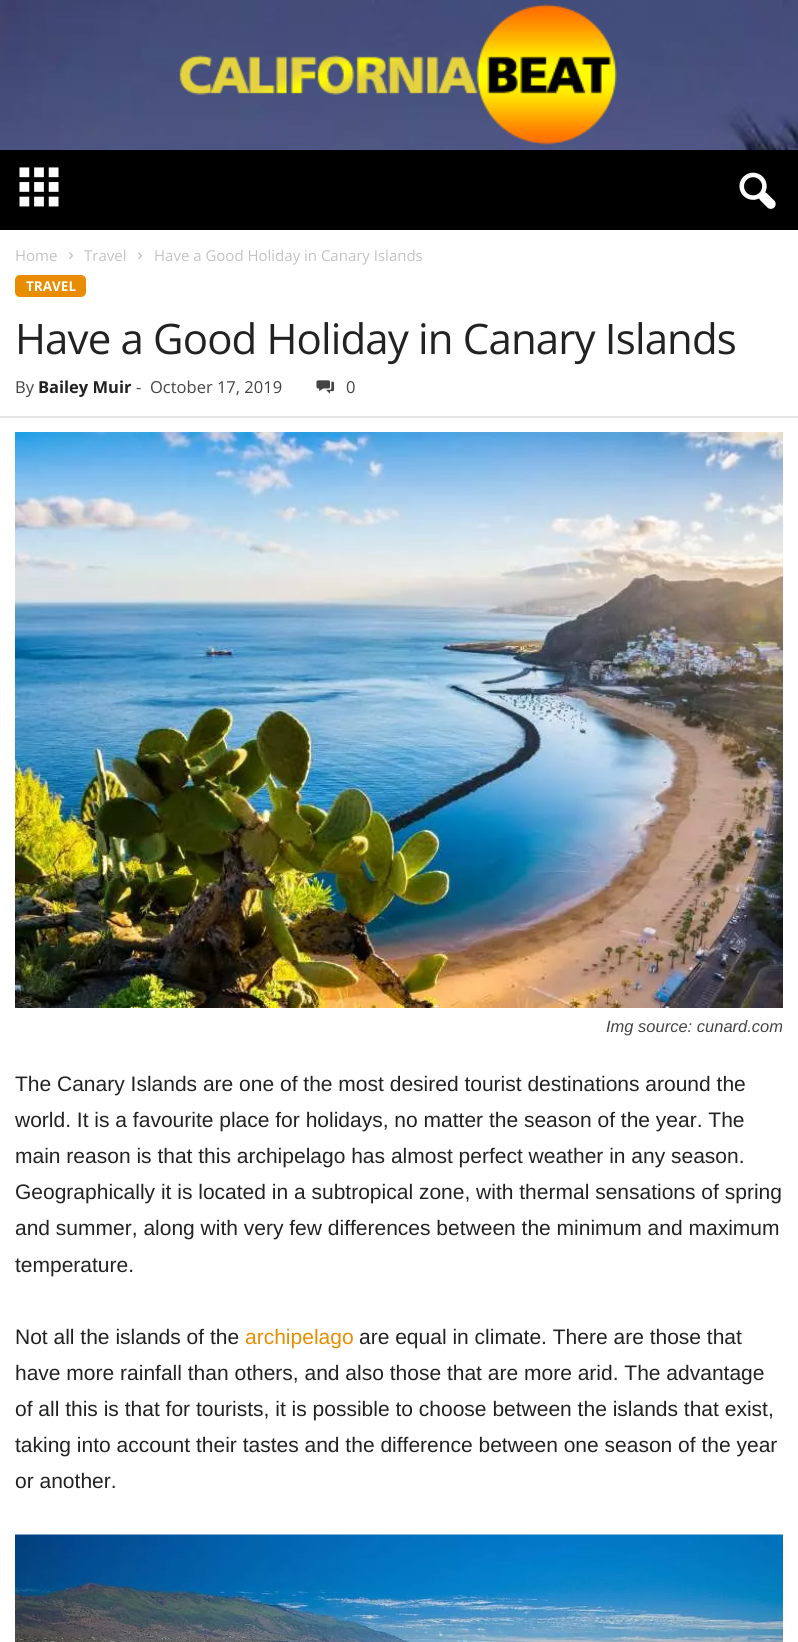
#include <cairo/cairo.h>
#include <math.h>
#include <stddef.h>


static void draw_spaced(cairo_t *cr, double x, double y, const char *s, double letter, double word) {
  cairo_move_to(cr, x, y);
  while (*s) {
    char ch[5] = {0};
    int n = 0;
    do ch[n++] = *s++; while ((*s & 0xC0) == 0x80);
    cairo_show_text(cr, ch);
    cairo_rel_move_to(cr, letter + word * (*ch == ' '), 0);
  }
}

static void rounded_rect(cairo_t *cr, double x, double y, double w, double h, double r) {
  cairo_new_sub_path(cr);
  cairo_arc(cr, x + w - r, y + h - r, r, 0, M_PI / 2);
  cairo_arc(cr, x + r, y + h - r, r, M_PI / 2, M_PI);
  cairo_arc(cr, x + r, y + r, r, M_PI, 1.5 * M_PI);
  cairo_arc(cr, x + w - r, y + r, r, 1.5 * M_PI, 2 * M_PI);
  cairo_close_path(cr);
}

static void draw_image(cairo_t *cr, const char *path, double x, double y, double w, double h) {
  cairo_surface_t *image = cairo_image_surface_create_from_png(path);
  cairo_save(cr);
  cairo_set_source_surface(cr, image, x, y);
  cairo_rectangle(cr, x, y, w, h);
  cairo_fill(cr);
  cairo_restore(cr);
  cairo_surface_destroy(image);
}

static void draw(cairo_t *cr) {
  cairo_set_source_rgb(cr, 1, 1, 1);
  cairo_paint(cr);
  draw_image(cr, "images/1.png", 0, 0, 798, 150);
  draw_image(cr, "images/2.png", 179, 4, 438, 141);
  cairo_set_source_rgb(cr, 0, 0, 0);
  cairo_rectangle(cr, 0, 150, 798, 80);
  cairo_fill(cr);
  draw_image(cr, "images/3.png", 19, 167, 40, 40);
  draw_image(cr, "images/4.png", 739, 172, 37, 37);
  draw_image(cr, "images/5.png", 69, 252, 4, 8);
  draw_image(cr, "images/5.png", 138, 252, 4, 8);
  cairo_set_source_rgb(cr, 234 / 255.0, 140 / 255.0, 0);
  rounded_rect(cr, 15, 275, 71, 22, 5);
  cairo_fill(cr);
  draw_image(cr, "images/6.png", 316, 380, 19, 14);
  cairo_set_source_rgb(cr, 230 / 255.0, 230 / 255.0, 230 / 255.0);
  cairo_rectangle(cr, 0, 416, 798, 2);
  cairo_fill(cr);
  draw_image(cr, "images/7.png", 15, 432, 768, 576);
  draw_image(cr, "images/8.png", 15, 1534, 768, 108);
  cairo_select_font_face(cr, "Open Sans", CAIRO_FONT_SLANT_NORMAL, CAIRO_FONT_WEIGHT_NORMAL);
  cairo_set_font_size(cr, 15);
  cairo_set_source_rgb(cr, 195 / 255.0, 195 / 255.0, 195 / 255.0);
  cairo_move_to(cr, 15, 261);
  cairo_show_text(cr, "Home");
  cairo_move_to(cr, 84, 261);
  cairo_show_text(cr, "Travel");
  cairo_move_to(cr, 154, 261);
  cairo_show_text(cr, "Have a Good Holiday in Canary Islands");
  cairo_select_font_face(cr, "Open Sans", CAIRO_FONT_SLANT_NORMAL, CAIRO_FONT_WEIGHT_BOLD);
  cairo_set_font_size(cr, 13.5);
  cairo_set_source_rgb(cr, 1, 1, 1);
  cairo_move_to(cr, 26, 291);
  cairo_show_text(cr, "TRAVEL");
  cairo_select_font_face(cr, "Open Sans", CAIRO_FONT_SLANT_NORMAL, CAIRO_FONT_WEIGHT_NORMAL);
  cairo_set_font_size(cr, 42);
  cairo_set_source_rgb(cr, 34 / 255.0, 34 / 255.0, 34 / 255.0);
  draw_spaced(cr, 15, 354, "Have a Good Holiday in Canary Islands", -0.85, 0);
  cairo_set_font_size(cr, 16.5);
  cairo_set_source_rgb(cr, 68 / 255.0, 68 / 255.0, 68 / 255.0);
  cairo_move_to(cr, 15, 393);
  cairo_show_text(cr, "By");
  cairo_select_font_face(cr, "Open Sans", CAIRO_FONT_SLANT_NORMAL, CAIRO_FONT_WEIGHT_BOLD);
  cairo_set_source_rgb(cr, 34 / 255.0, 34 / 255.0, 34 / 255.0);
  cairo_move_to(cr, 38, 393);
  cairo_show_text(cr, "Bailey Muir");
  cairo_select_font_face(cr, "Open Sans", CAIRO_FONT_SLANT_NORMAL, CAIRO_FONT_WEIGHT_NORMAL);
  cairo_set_source_rgb(cr, 68 / 255.0, 68 / 255.0, 68 / 255.0);
  cairo_move_to(cr, 136, 393);
  cairo_show_text(cr, "-");
  cairo_move_to(cr, 150, 393);
  cairo_show_text(cr, "October 17, 2019");
  cairo_move_to(cr, 346, 393);
  cairo_show_text(cr, "0");
  cairo_select_font_face(cr, "Liberation Sans", CAIRO_FONT_SLANT_ITALIC, CAIRO_FONT_WEIGHT_NORMAL);
  cairo_move_to(cr, 606, 1032);
  cairo_show_text(cr, "Img source: cunard.com");
  cairo_select_font_face(cr, "Liberation Sans", CAIRO_FONT_SLANT_NORMAL, CAIRO_FONT_WEIGHT_NORMAL);
  cairo_set_font_size(cr, 21);
  cairo_set_source_rgb(cr, 34 / 255.0, 34 / 255.0, 34 / 255.0);
  cairo_move_to(cr, 15, 1091);
  cairo_show_text(cr, "The Canary Islands are one of the most desired tourist destinations around the");
  cairo_move_to(cr, 15, 1127);
  cairo_show_text(cr, "world. It is a favourite place for holidays, no matter the season of the year. The");
  cairo_move_to(cr, 15, 1163);
  cairo_show_text(cr, "main reason is that this archipelago has almost perfect weather in any season.");
  cairo_move_to(cr, 15, 1199);
  cairo_show_text(cr, "Geographically it is located in a subtropical zone, with thermal sensations of spring");
  cairo_move_to(cr, 15, 1235);
  cairo_show_text(cr, "and summer, along with very few differences between the minimum and maximum");
  cairo_move_to(cr, 15, 1272);
  cairo_show_text(cr, "temperature.");
  cairo_move_to(cr, 15, 1344);
  cairo_show_text(cr, "Not all the islands of the");
  cairo_set_source_rgb(cr, 234 / 255.0, 140 / 255.0, 0);
  cairo_move_to(cr, 245, 1344);
  cairo_show_text(cr, "archipelago");
  cairo_set_source_rgb(cr, 34 / 255.0, 34 / 255.0, 34 / 255.0);
  cairo_move_to(cr, 359, 1344);
  cairo_show_text(cr, "are equal in climate. There are those that");
  cairo_move_to(cr, 15, 1380);
  cairo_show_text(cr, "have more rainfall than others, and also those that are more arid. The advantage");
  cairo_move_to(cr, 15, 1416);
  cairo_show_text(cr, "of all this is that for tourists, it is possible to choose between the islands that exist,");
  cairo_move_to(cr, 15, 1452);
  cairo_show_text(cr, "taking into account their tastes and the difference between one season of the year");
  cairo_move_to(cr, 15, 1488);
  cairo_show_text(cr, "or another.");
}

int main(void) {
  cairo_surface_t *surface = cairo_image_surface_create(CAIRO_FORMAT_RGB24, 798, 1642);
  cairo_t *cr = cairo_create(surface);
  cairo_font_options_t *options = cairo_font_options_create();
  cairo_font_options_set_hint_metrics(options, CAIRO_HINT_METRICS_OFF);
  cairo_font_options_set_hint_style(options, CAIRO_HINT_STYLE_NONE);
  cairo_set_font_options(cr, options);
  cairo_set_miter_limit(cr, 4);
  draw(cr);
  cairo_surface_write_to_png(surface, "out.png");
  cairo_font_options_destroy(options);
  cairo_destroy(cr);
  cairo_surface_destroy(surface);
  return 0;
}
